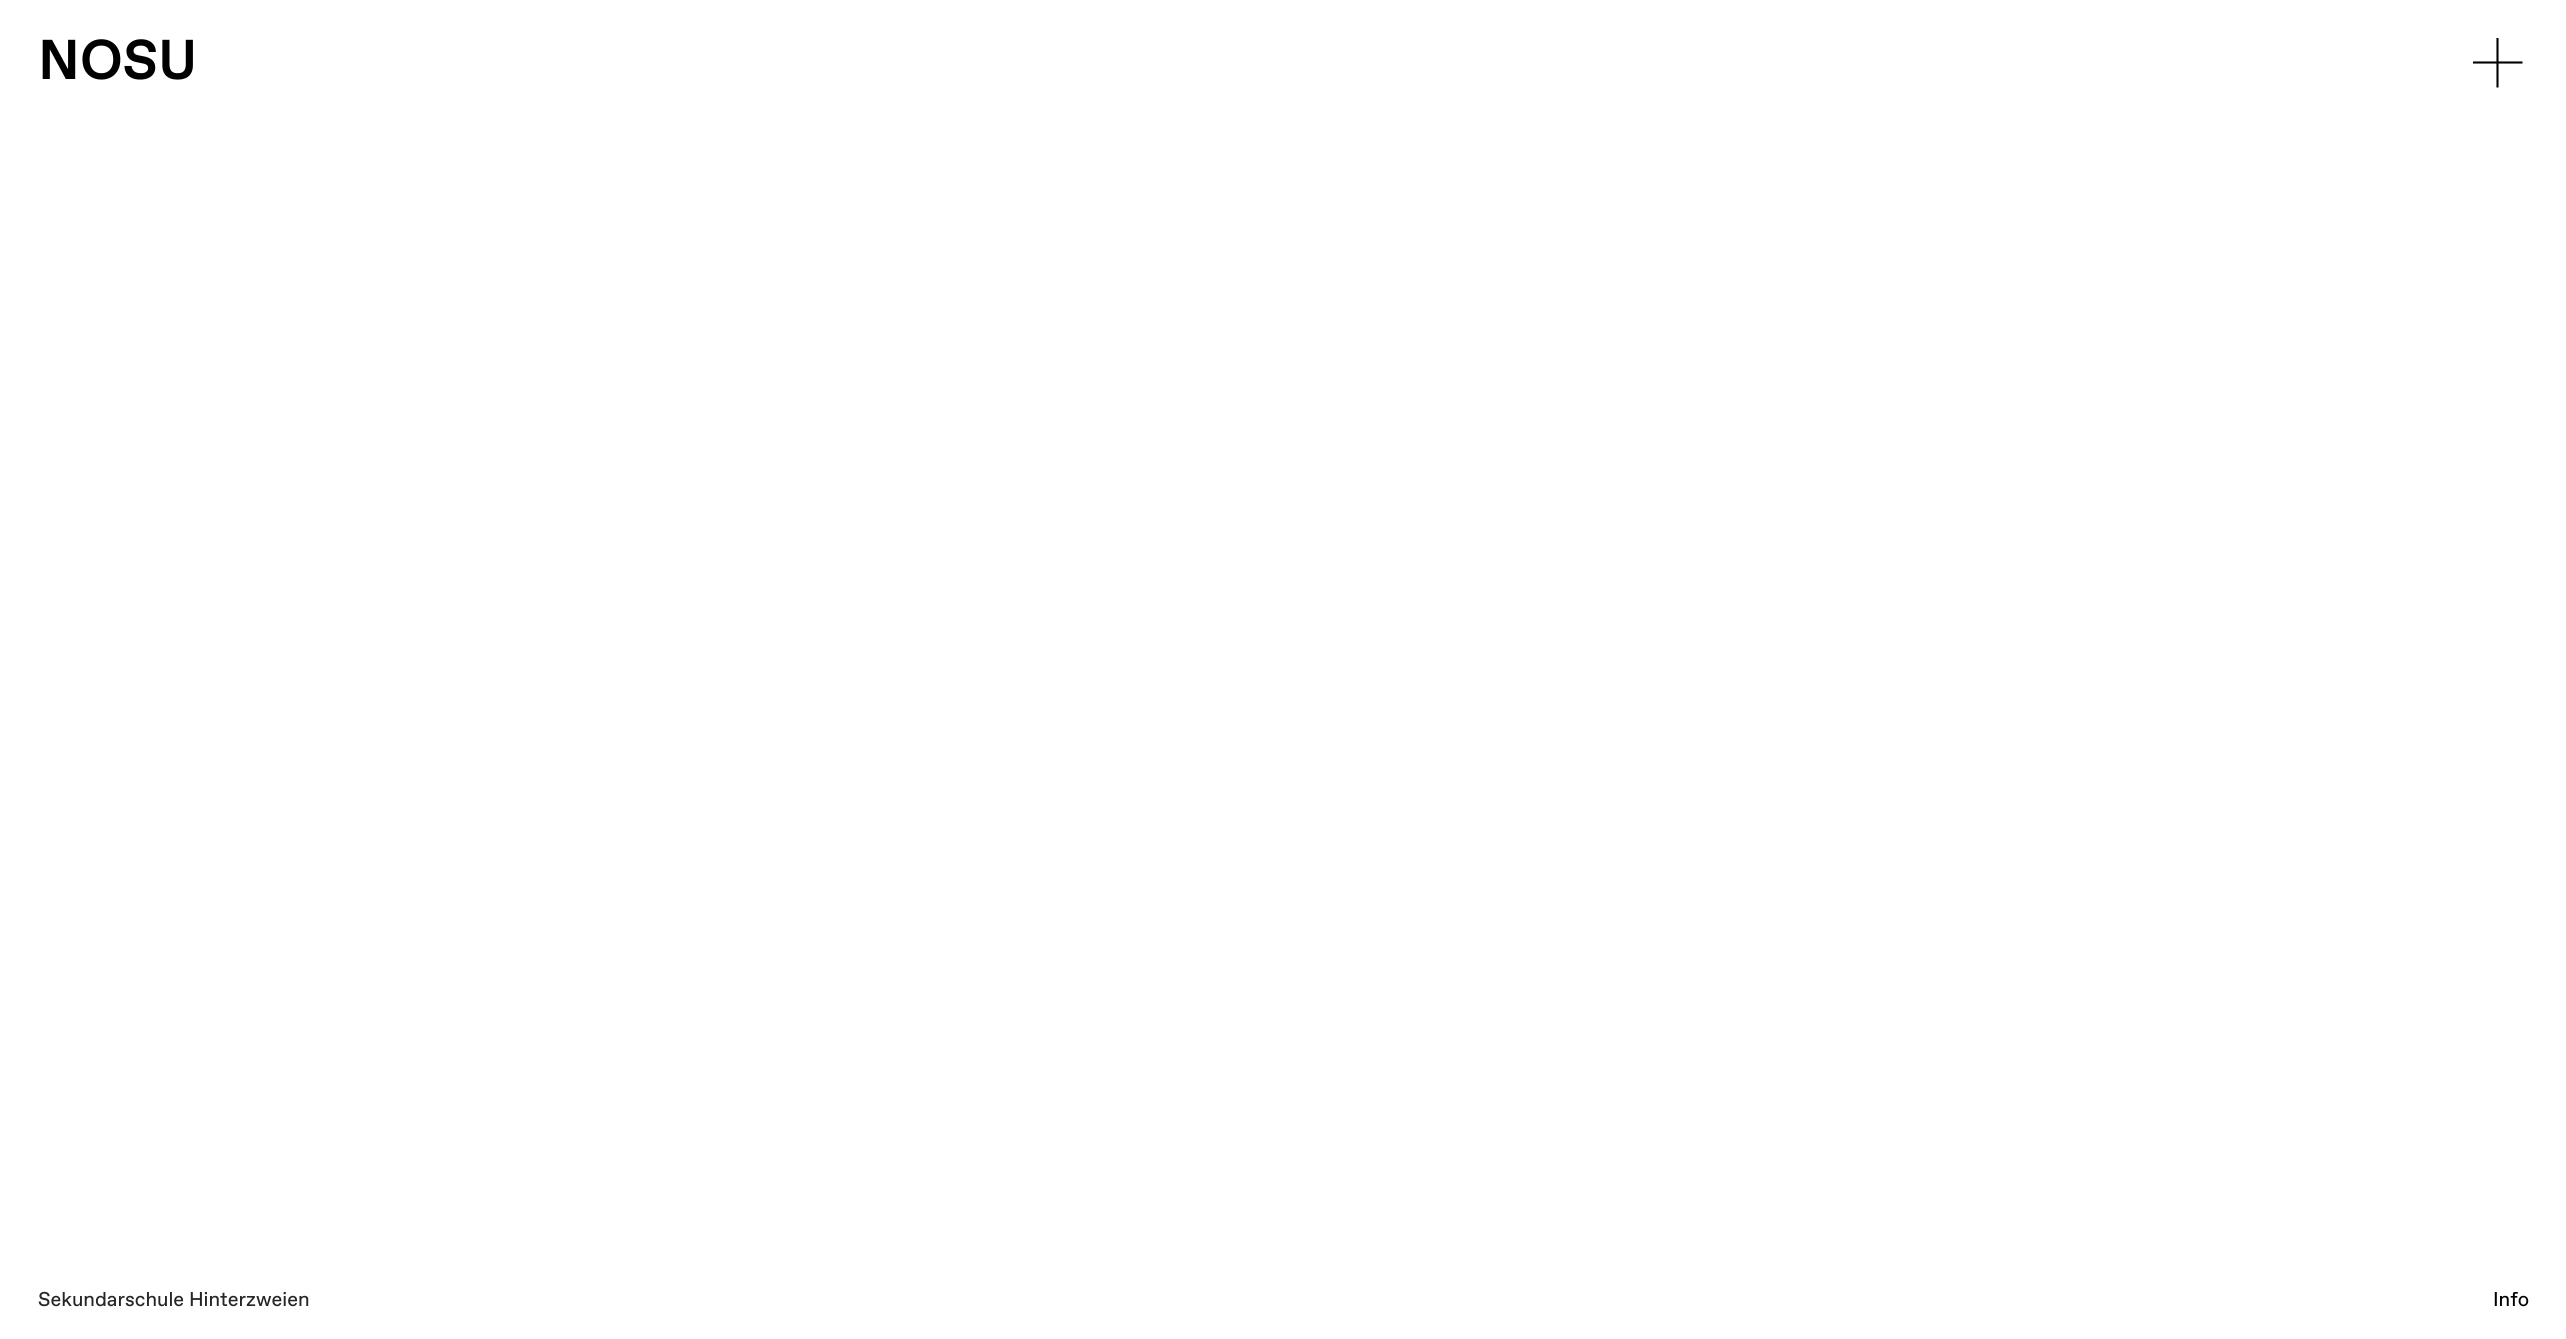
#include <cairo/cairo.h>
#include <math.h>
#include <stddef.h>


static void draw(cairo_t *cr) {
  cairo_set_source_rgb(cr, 1, 1, 1);
  cairo_paint(cr);
  cairo_save(cr);
  cairo_rectangle(cr, 2473, 38, 50, 50);
  cairo_clip(cr);
  cairo_new_path(cr);
  cairo_move_to(cr, 2497.5, 87.5);
  cairo_line_to(cr, 2497.5, 37.5);
  cairo_move_to(cr, 2472.5, 62.5);
  cairo_line_to(cr, 2522.5, 62.5);
  cairo_set_source_rgb(cr, 0, 0, 0);
  cairo_set_line_width(cr, 2.1);
  cairo_stroke(cr);
  cairo_restore(cr);
  cairo_select_font_face(cr, "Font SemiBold", CAIRO_FONT_SLANT_NORMAL, CAIRO_FONT_WEIGHT_NORMAL);
  cairo_set_font_size(cr, 56);
  cairo_set_source_rgb(cr, 0, 0, 0);
  cairo_move_to(cr, 38, 79);
  cairo_show_text(cr, "NOSU");
  cairo_select_font_face(cr, "Font", CAIRO_FONT_SLANT_NORMAL, CAIRO_FONT_WEIGHT_NORMAL);
  cairo_set_font_size(cr, 20);
  cairo_set_source_rgb(cr, 38 / 255.0, 38 / 255.0, 38 / 255.0);
  cairo_move_to(cr, 38, 1306);
  cairo_show_text(cr, "Sekundarschule Hinterzweien");
  cairo_set_source_rgb(cr, 0, 0, 0);
  cairo_move_to(cr, 2493, 1306);
  cairo_show_text(cr, "Info");
}

int main(void) {
  cairo_surface_t *surface = cairo_image_surface_create(CAIRO_FORMAT_RGB24, 2566, 1339);
  cairo_t *cr = cairo_create(surface);
  cairo_font_options_t *options = cairo_font_options_create();
  cairo_font_options_set_hint_metrics(options, CAIRO_HINT_METRICS_OFF);
  cairo_font_options_set_hint_style(options, CAIRO_HINT_STYLE_NONE);
  cairo_set_font_options(cr, options);
  cairo_set_miter_limit(cr, 4);
  draw(cr);
  cairo_surface_write_to_png(surface, "out.png");
  cairo_font_options_destroy(options);
  cairo_destroy(cr);
  cairo_surface_destroy(surface);
  return 0;
}
